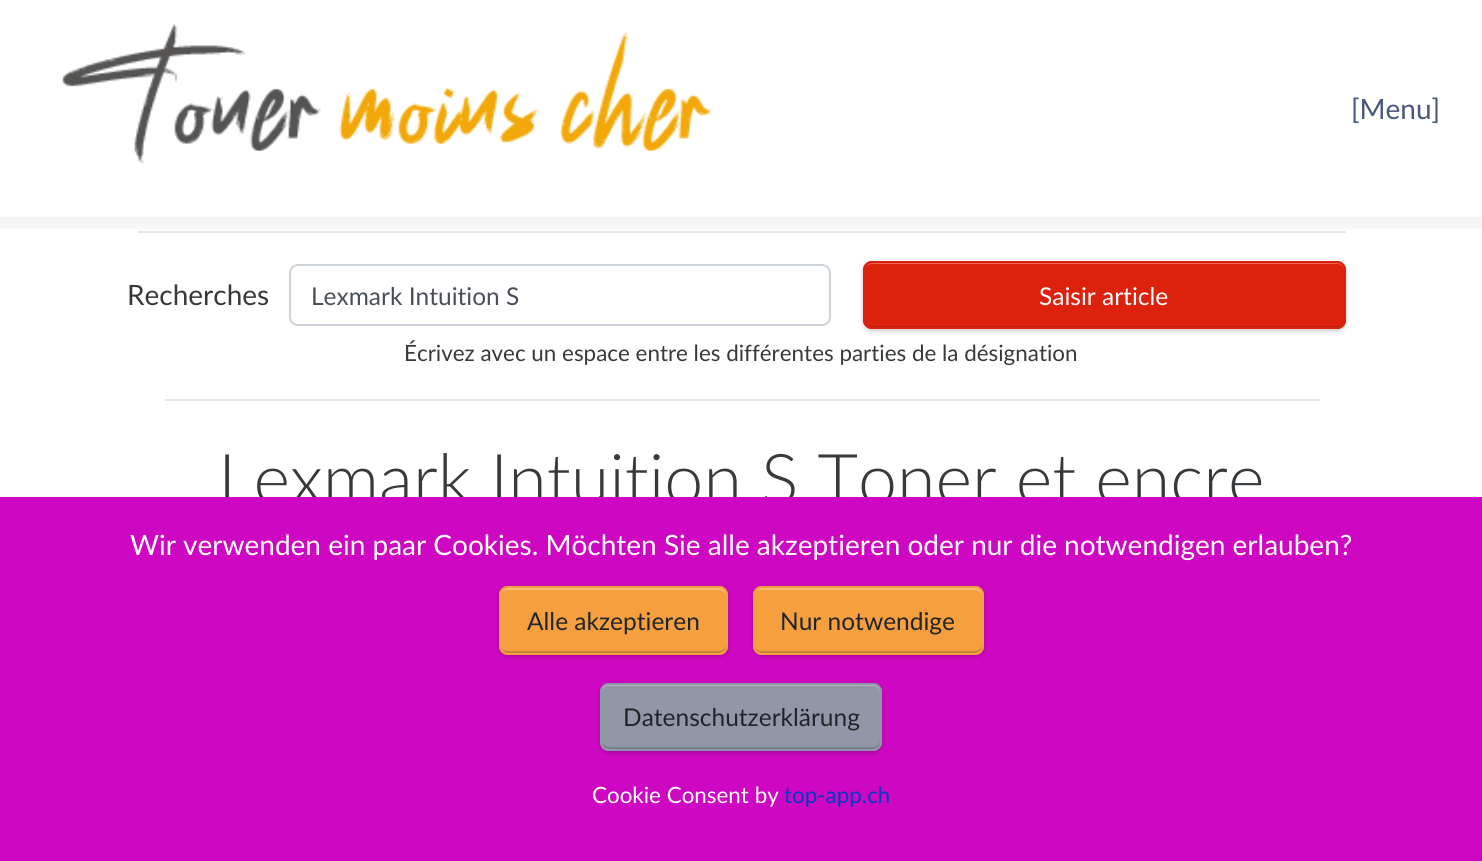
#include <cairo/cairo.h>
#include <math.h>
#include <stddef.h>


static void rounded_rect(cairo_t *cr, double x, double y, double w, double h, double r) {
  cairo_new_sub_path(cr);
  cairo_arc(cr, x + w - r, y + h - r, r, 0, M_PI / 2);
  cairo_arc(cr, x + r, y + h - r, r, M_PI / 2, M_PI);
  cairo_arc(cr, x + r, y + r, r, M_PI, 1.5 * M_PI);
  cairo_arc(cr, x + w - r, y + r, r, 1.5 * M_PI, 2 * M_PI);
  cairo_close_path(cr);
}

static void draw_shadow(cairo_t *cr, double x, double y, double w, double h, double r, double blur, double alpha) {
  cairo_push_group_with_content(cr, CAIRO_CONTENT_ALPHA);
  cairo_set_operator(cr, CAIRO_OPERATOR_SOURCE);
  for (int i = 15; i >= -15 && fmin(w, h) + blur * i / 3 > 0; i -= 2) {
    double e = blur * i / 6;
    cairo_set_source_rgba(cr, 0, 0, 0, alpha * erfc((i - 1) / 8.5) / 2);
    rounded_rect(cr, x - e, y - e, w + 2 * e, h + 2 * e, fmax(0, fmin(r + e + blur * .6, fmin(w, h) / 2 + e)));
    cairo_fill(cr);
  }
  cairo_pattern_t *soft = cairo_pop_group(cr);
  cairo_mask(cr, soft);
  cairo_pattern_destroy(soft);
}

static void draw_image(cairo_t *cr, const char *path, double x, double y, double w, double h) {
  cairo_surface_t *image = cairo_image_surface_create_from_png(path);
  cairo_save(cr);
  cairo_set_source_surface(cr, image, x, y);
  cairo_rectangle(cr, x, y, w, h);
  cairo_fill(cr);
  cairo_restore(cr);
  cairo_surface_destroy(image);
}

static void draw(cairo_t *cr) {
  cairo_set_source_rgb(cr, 1, 1, 1);
  cairo_paint(cr);
  cairo_set_source_rgb(cr, 230 / 255.0, 230 / 255.0, 230 / 255.0);
  cairo_rectangle(cr, 138, 231, 1208, 2);
  cairo_fill(cr);
  cairo_save(cr);
  cairo_rectangle(cr, 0, 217, 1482, 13);
  cairo_clip(cr);
  cairo_set_source_rgb(cr, 0, 0, 0);
  draw_shadow(cr, -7, -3, 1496, 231, 0, 6, 0.05);
  cairo_restore(cr);
  draw_image(cr, "images/1.png", 62, 24, 651, 141);
  rounded_rect(cr, 290, 265, 540, 60, 8);
  cairo_set_source_rgb(cr, 206 / 255.0, 212 / 255.0, 218 / 255.0);
  cairo_stroke(cr);
  cairo_set_source_rgb(cr, 0, 0, 0);
  draw_shadow(cr, 863, 263, 483, 68, 9, 2.5, 0.22);
  cairo_set_source_rgb(cr, 220 / 255.0, 33 / 255.0, 13 / 255.0);
  rounded_rect(cr, 863, 261, 483, 68, 9);
  cairo_fill(cr);
  cairo_set_source_rgb(cr, 180 / 255.0, 34 / 255.0, 19 / 255.0);
  cairo_new_path(cr);
  cairo_move_to(cr, 865, 322);
  cairo_curve_to(cr, 866, 325, 869, 327, 872, 327);
  cairo_line_to(cr, 1337, 327);
  cairo_curve_to(cr, 1341, 327, 1344, 324, 1344, 320);
  cairo_line_to(cr, 1344, 318);
  cairo_curve_to(cr, 1344, 322, 1341, 326, 1337, 326);
  cairo_line_to(cr, 872, 326);
  cairo_curve_to(cr, 869, 326, 867, 324, 865, 322);
  cairo_close_path(cr);
  cairo_fill(cr);
  cairo_set_source_rgb(cr, 231 / 255.0, 100 / 255.0, 86 / 255.0);
  cairo_new_path(cr);
  cairo_move_to(cr, 872, 264);
  cairo_line_to(cr, 1337, 264);
  cairo_curve_to(cr, 1341, 264, 1344, 267, 1344, 271);
  cairo_line_to(cr, 1344, 270);
  cairo_curve_to(cr, 1344, 266, 1341, 263, 1337, 263);
  cairo_line_to(cr, 872, 263);
  cairo_curve_to(cr, 869, 263, 867, 264, 866, 267);
  cairo_curve_to(cr, 867, 265, 870, 264, 872, 264);
  cairo_close_path(cr);
  cairo_fill(cr);
  rounded_rect(cr, 864, 262, 481, 66, 8);
  cairo_set_source_rgb(cr, 220 / 255.0, 33 / 255.0, 13 / 255.0);
  cairo_stroke(cr);
  cairo_set_source_rgb(cr, 230 / 255.0, 230 / 255.0, 230 / 255.0);
  cairo_rectangle(cr, 165, 399, 1155, 2);
  cairo_fill(cr);
  cairo_select_font_face(cr, "Lato", CAIRO_FONT_SLANT_NORMAL, CAIRO_FONT_WEIGHT_NORMAL);
  cairo_set_font_size(cr, 28);
  cairo_set_source_rgb(cr, 72 / 255.0, 87 / 255.0, 125 / 255.0);
  cairo_move_to(cr, 1351, 119);
  cairo_show_text(cr, "[Menu]");
  cairo_set_source_rgb(cr, 55 / 255.0, 58 / 255.0, 60 / 255.0);
  cairo_move_to(cr, 127, 305);
  cairo_show_text(cr, "Recherches");
  cairo_set_font_size(cr, 24.5);
  cairo_set_source_rgb(cr, 73 / 255.0, 80 / 255.0, 87 / 255.0);
  cairo_move_to(cr, 311, 305);
  cairo_show_text(cr, "Lexmark Intuition S");
  cairo_set_source_rgb(cr, 1, 1, 1);
  cairo_move_to(cr, 1039, 305);
  cairo_show_text(cr, "Saisir article");
  cairo_set_font_size(cr, 22.4);
  cairo_set_source_rgb(cr, 55 / 255.0, 58 / 255.0, 60 / 255.0);
  cairo_move_to(cr, 404, 361);
  cairo_show_text(cr, "Écrivez avec un espace entre les différentes parties de la désignation");
  cairo_select_font_face(cr, "Lato Light", CAIRO_FONT_SLANT_NORMAL, CAIRO_FONT_WEIGHT_NORMAL);
  cairo_set_font_size(cr, 70);
  cairo_move_to(cr, 218, 504);
  cairo_show_text(cr, "Lexmark Intuition S Toner et encre");
  cairo_set_source_rgb(cr, 206 / 255.0, 8 / 255.0, 194 / 255.0);
  cairo_rectangle(cr, 0, 497, 1482, 364);
  cairo_fill(cr);
  cairo_select_font_face(cr, "Lato", CAIRO_FONT_SLANT_NORMAL, CAIRO_FONT_WEIGHT_NORMAL);
  cairo_set_font_size(cr, 28);
  cairo_set_source_rgb(cr, 1, 1, 1);
  cairo_move_to(cr, 130, 555);
  cairo_show_text(cr, "Wir verwenden ein paar Cookies. Möchten Sie alle akzeptieren oder nur die notwendigen erlauben?");
  cairo_set_source_rgb(cr, 0, 0, 0);
  draw_shadow(cr, 499, 588, 229, 68, 9, 2.5, 0.22);
  cairo_set_source_rgb(cr, 245 / 255.0, 159 / 255.0, 63 / 255.0);
  rounded_rect(cr, 499, 586, 229, 69, 9);
  cairo_fill(cr);
  cairo_set_source_rgb(cr, 200 / 255.0, 133 / 255.0, 58 / 255.0);
  cairo_new_path(cr);
  cairo_move_to(cr, 501, 648);
  cairo_curve_to(cr, 502, 651, 505, 653, 508, 653);
  cairo_line_to(cr, 719, 653);
  cairo_curve_to(cr, 723, 653, 726, 650, 726, 646);
  cairo_line_to(cr, 726, 644);
  cairo_curve_to(cr, 726, 648, 723, 651, 719, 651);
  cairo_line_to(cr, 508, 651);
  cairo_curve_to(cr, 505, 651, 503, 650, 501, 648);
  cairo_close_path(cr);
  cairo_fill(cr);
  cairo_set_source_rgb(cr, 248 / 255.0, 188 / 255.0, 121 / 255.0);
  cairo_new_path(cr);
  cairo_move_to(cr, 508, 590);
  cairo_line_to(cr, 719, 590);
  cairo_curve_to(cr, 723, 590, 726, 593, 726, 597);
  cairo_line_to(cr, 726, 595);
  cairo_curve_to(cr, 726, 591, 723, 588, 719, 588);
  cairo_line_to(cr, 508, 588);
  cairo_curve_to(cr, 505, 588, 502, 590, 501, 593);
  cairo_curve_to(cr, 503, 591, 505, 590, 508, 590);
  cairo_close_path(cr);
  cairo_fill(cr);
  rounded_rect(cr, 500, 587, 227, 67, 8);
  cairo_set_source_rgb(cr, 245 / 255.0, 159 / 255.0, 63 / 255.0);
  cairo_stroke(cr);
  cairo_set_font_size(cr, 24.5);
  cairo_set_source_rgb(cr, 33 / 255.0, 37 / 255.0, 41 / 255.0);
  cairo_move_to(cr, 527, 630);
  cairo_show_text(cr, "Alle akzeptieren");
  cairo_set_source_rgb(cr, 0, 0, 0);
  draw_shadow(cr, 753, 588, 231, 68, 9, 2.5, 0.22);
  cairo_set_source_rgb(cr, 245 / 255.0, 159 / 255.0, 63 / 255.0);
  rounded_rect(cr, 753, 586, 231, 69, 9);
  cairo_fill(cr);
  cairo_set_source_rgb(cr, 200 / 255.0, 133 / 255.0, 58 / 255.0);
  cairo_new_path(cr);
  cairo_move_to(cr, 754, 644);
  cairo_line_to(cr, 754, 646);
  cairo_curve_to(cr, 754, 650, 757, 653, 761, 653);
  cairo_line_to(cr, 975, 653);
  cairo_curve_to(cr, 979, 653, 982, 650, 982, 646);
  cairo_line_to(cr, 982, 644);
  cairo_curve_to(cr, 982, 648, 979, 651, 975, 651);
  cairo_line_to(cr, 761, 651);
  cairo_curve_to(cr, 757, 651, 754, 648, 754, 644);
  cairo_close_path(cr);
  cairo_fill(cr);
  cairo_set_source_rgb(cr, 248 / 255.0, 188 / 255.0, 121 / 255.0);
  cairo_new_path(cr);
  cairo_move_to(cr, 761, 590);
  cairo_line_to(cr, 975, 590);
  cairo_curve_to(cr, 979, 590, 982, 593, 982, 597);
  cairo_line_to(cr, 982, 595);
  cairo_curve_to(cr, 982, 591, 979, 588, 975, 588);
  cairo_line_to(cr, 761, 588);
  cairo_curve_to(cr, 757, 588, 754, 591, 754, 595);
  cairo_line_to(cr, 754, 597);
  cairo_curve_to(cr, 754, 593, 757, 590, 761, 590);
  cairo_close_path(cr);
  cairo_fill(cr);
  rounded_rect(cr, 754, 587, 229, 67, 8);
  cairo_set_source_rgb(cr, 245 / 255.0, 159 / 255.0, 63 / 255.0);
  cairo_stroke(cr);
  cairo_set_source_rgb(cr, 33 / 255.0, 37 / 255.0, 41 / 255.0);
  cairo_move_to(cr, 780, 630);
  cairo_show_text(cr, "Nur notwendige");
  cairo_set_source_rgb(cr, 0, 0, 0);
  draw_shadow(cr, 600, 684, 282, 69, 9, 2.5, 0.22);
  cairo_set_source_rgb(cr, 145 / 255.0, 151 / 255.0, 166 / 255.0);
  rounded_rect(cr, 600, 683, 282, 68, 9);
  cairo_fill(cr);
  cairo_set_source_rgb(cr, 122 / 255.0, 126 / 255.0, 138 / 255.0);
  cairo_new_path(cr);
  cairo_move_to(cr, 602, 740);
  cairo_line_to(cr, 602, 742);
  cairo_curve_to(cr, 602, 746, 605, 749, 609, 749);
  cairo_line_to(cr, 873, 749);
  cairo_curve_to(cr, 877, 749, 880, 746, 880, 742);
  cairo_line_to(cr, 880, 740);
  cairo_curve_to(cr, 880, 744, 877, 747, 873, 747);
  cairo_line_to(cr, 609, 747);
  cairo_curve_to(cr, 605, 747, 602, 744, 602, 740);
  cairo_close_path(cr);
  cairo_fill(cr);
  cairo_set_source_rgb(cr, 178 / 255.0, 182 / 255.0, 193 / 255.0);
  cairo_new_path(cr);
  cairo_move_to(cr, 609, 686);
  cairo_line_to(cr, 873, 686);
  cairo_curve_to(cr, 877, 686, 880, 689, 880, 693);
  cairo_line_to(cr, 880, 691);
  cairo_curve_to(cr, 880, 687, 877, 684, 873, 684);
  cairo_line_to(cr, 609, 684);
  cairo_curve_to(cr, 605, 684, 602, 687, 602, 691);
  cairo_line_to(cr, 602, 693);
  cairo_curve_to(cr, 602, 689, 605, 686, 609, 686);
  cairo_close_path(cr);
  cairo_fill(cr);
  rounded_rect(cr, 601, 684, 280, 66, 8);
  cairo_set_source_rgb(cr, 145 / 255.0, 151 / 255.0, 166 / 255.0);
  cairo_stroke(cr);
  cairo_set_source_rgb(cr, 33 / 255.0, 37 / 255.0, 41 / 255.0);
  cairo_move_to(cr, 623, 726);
  cairo_show_text(cr, "Datenschutzerklärung");
  cairo_set_font_size(cr, 22.4);
  cairo_set_source_rgb(cr, 1, 1, 1);
  cairo_move_to(cr, 592, 803);
  cairo_show_text(cr, "Cookie Consent by");
  cairo_set_source_rgb(cr, 1 / 255.0, 58 / 255.0, 195 / 255.0);
  cairo_move_to(cr, 784, 803);
  cairo_show_text(cr, "top-app.ch");
}

int main(void) {
  cairo_surface_t *surface = cairo_image_surface_create(CAIRO_FORMAT_RGB24, 1482, 861);
  cairo_t *cr = cairo_create(surface);
  cairo_font_options_t *options = cairo_font_options_create();
  cairo_font_options_set_hint_metrics(options, CAIRO_HINT_METRICS_OFF);
  cairo_font_options_set_hint_style(options, CAIRO_HINT_STYLE_NONE);
  cairo_set_font_options(cr, options);
  cairo_set_miter_limit(cr, 4);
  draw(cr);
  cairo_surface_write_to_png(surface, "out.png");
  cairo_font_options_destroy(options);
  cairo_destroy(cr);
  cairo_surface_destroy(surface);
  return 0;
}
